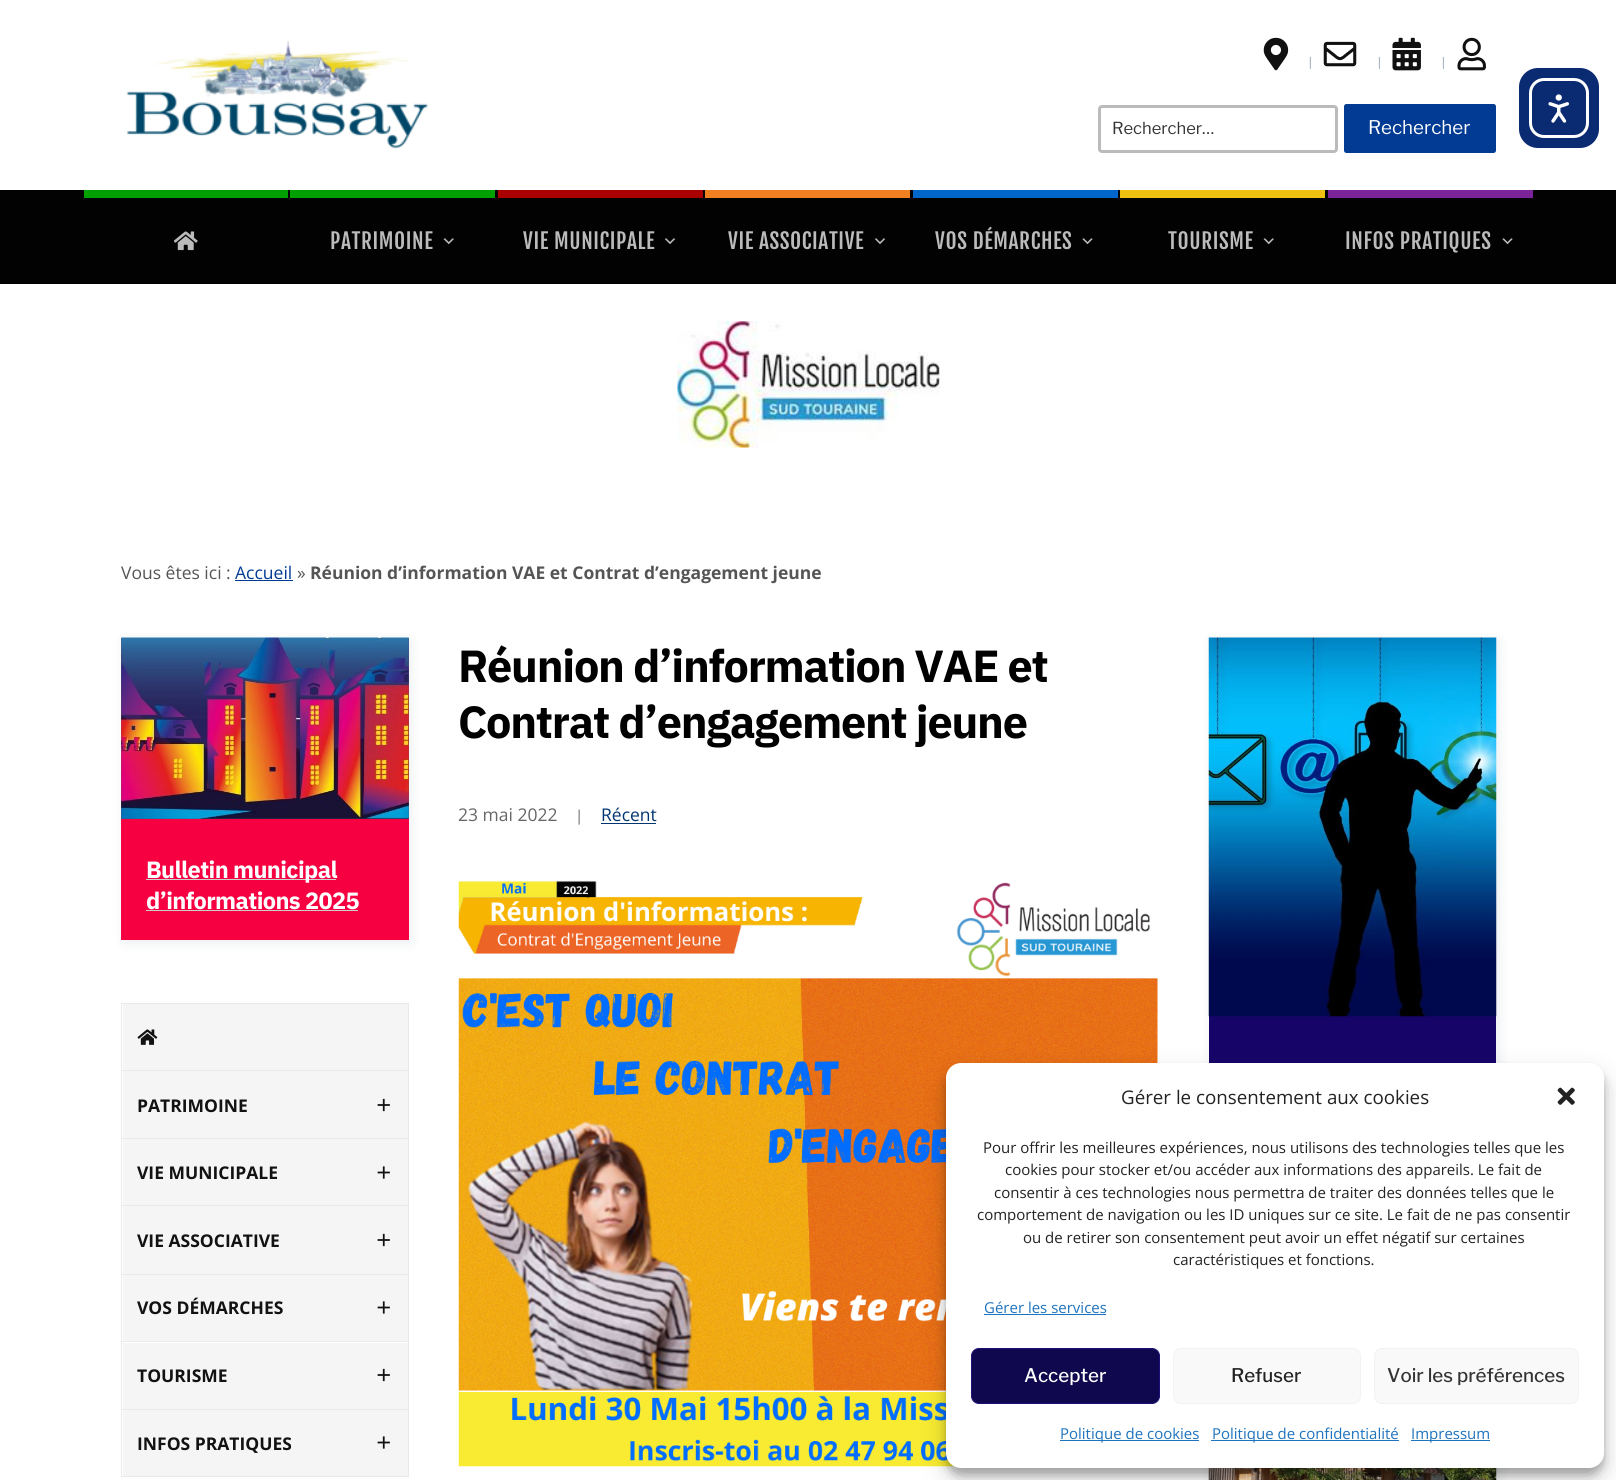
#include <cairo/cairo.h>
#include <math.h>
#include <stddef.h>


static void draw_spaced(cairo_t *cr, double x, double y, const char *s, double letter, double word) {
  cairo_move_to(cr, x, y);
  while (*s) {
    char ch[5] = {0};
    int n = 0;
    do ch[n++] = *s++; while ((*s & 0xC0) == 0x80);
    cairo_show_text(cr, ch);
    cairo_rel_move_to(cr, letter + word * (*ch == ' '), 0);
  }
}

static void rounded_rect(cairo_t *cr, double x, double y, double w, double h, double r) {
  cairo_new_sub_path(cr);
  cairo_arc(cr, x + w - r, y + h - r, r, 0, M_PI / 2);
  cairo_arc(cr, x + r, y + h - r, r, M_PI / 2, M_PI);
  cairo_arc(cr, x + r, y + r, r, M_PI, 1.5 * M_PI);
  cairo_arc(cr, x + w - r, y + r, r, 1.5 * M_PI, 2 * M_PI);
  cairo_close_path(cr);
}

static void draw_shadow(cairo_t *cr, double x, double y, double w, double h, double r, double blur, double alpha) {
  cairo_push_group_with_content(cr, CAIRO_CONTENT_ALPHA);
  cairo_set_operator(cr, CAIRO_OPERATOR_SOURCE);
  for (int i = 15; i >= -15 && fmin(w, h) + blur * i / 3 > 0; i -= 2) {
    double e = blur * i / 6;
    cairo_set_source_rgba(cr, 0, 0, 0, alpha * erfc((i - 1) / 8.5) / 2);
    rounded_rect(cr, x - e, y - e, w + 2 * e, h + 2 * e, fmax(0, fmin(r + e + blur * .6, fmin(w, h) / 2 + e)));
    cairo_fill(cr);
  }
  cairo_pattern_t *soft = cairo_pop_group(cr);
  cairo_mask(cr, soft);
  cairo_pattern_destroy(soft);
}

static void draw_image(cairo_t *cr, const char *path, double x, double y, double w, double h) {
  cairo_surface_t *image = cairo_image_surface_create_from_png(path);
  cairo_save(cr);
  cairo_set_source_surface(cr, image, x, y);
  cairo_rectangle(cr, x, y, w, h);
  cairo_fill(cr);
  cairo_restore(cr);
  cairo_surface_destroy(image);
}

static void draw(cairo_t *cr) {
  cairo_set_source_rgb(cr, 1, 1, 1);
  cairo_paint(cr);
  draw_image(cr, "images/1.png", 126, 40, 302, 109);
  draw_image(cr, "images/2.png", 1263, 37, 26, 34);
  draw_image(cr, "images/3.png", 1323, 41, 34, 26);
  draw_image(cr, "images/4.png", 1392, 37, 29, 34);
  draw_image(cr, "images/5.png", 1457, 37, 29, 34);
  rounded_rect(cr, 1099.5, 106.5, 237, 45, 2.5);
  cairo_set_source_rgb(cr, 187 / 255.0, 187 / 255.0, 187 / 255.0);
  cairo_set_line_width(cr, 3);
  cairo_stroke(cr);
  cairo_set_source_rgb(cr, 1 / 255.0, 59 / 255.0, 147 / 255.0);
  rounded_rect(cr, 1344, 104, 152, 49, 2.5);
  cairo_fill(cr);
  cairo_set_source_rgb(cr, 2 / 255.0, 2 / 255.0, 2 / 255.0);
  cairo_rectangle(cr, 0, 190, 1616, 94);
  cairo_fill(cr);
  cairo_set_source_rgb(cr, 0, 160 / 255.0, 0);
  cairo_rectangle(cr, 84, 190, 204, 8);
  cairo_fill(cr);
  draw_image(cr, "images/6.png", 173, 231, 25, 20);
  cairo_rectangle(cr, 290, 190, 205, 8);
  cairo_fill(cr);
  draw_image(cr, "images/7.png", 443, 238, 11, 7);
  cairo_set_source_rgb(cr, 170 / 255.0, 0, 0);
  cairo_rectangle(cr, 498, 190, 205, 8);
  cairo_fill(cr);
  draw_image(cr, "images/8.png", 664, 238, 12, 7);
  cairo_set_source_rgb(cr, 240 / 255.0, 128 / 255.0, 32 / 255.0);
  cairo_rectangle(cr, 705, 190, 205, 8);
  cairo_fill(cr);
  draw_image(cr, "images/8.png", 874, 238, 12, 7);
  cairo_set_source_rgb(cr, 0, 102 / 255.0, 204 / 255.0);
  cairo_rectangle(cr, 913, 190, 205, 8);
  cairo_fill(cr);
  draw_image(cr, "images/9.png", 1082, 238, 11, 7);
  cairo_set_source_rgb(cr, 240 / 255.0, 192 / 255.0, 16 / 255.0);
  cairo_rectangle(cr, 1120, 190, 205, 8);
  cairo_fill(cr);
  draw_image(cr, "images/7.png", 1263, 238, 11, 7);
  cairo_set_source_rgb(cr, 123 / 255.0, 35 / 255.0, 152 / 255.0);
  cairo_rectangle(cr, 1328, 190, 205, 8);
  cairo_fill(cr);
  draw_image(cr, "images/9.png", 1502, 238, 11, 7);
  draw_image(cr, "images/10.png", 677, 321, 263, 127);
  cairo_set_source_rgb(cr, 1 / 255.0, 59 / 255.0, 147 / 255.0);
  cairo_rectangle(cr, 235, 580, 58, 1);
  cairo_fill(cr);
  cairo_set_source_rgb(cr, 0, 53 / 255.0, 114 / 255.0);
  cairo_rectangle(cr, 601, 823, 55, 1);
  cairo_fill(cr);
  draw_image(cr, "images/11.png", 458, 880, 700, 587);
  cairo_set_source_rgb(cr, 2 / 255.0, 28 / 255.0, 46 / 255.0);
  draw_shadow(cr, 1211, 640, 288, 470, 0, 6, 0.08);
  cairo_set_source_rgb(cr, 22 / 255.0, 4 / 255.0, 104 / 255.0);
  cairo_rectangle(cr, 1209, 1016, 287, 47);
  cairo_fill(cr);
  draw_image(cr, "images/12.png", 1208, 637, 289, 380);
  cairo_set_source_rgb(cr, 2 / 255.0, 28 / 255.0, 46 / 255.0);
  draw_shadow(cr, 1211, 1374, 288, 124, 0, 6, 0.08);
  draw_image(cr, "images/13.png", 1208, 1468, 289, 12);
  draw_shadow(cr, 124, 640, 287, 303, 0, 6, 0.08);
  cairo_set_source_rgb(cr, 103 / 255.0, 77 / 255.0, 107 / 255.0);
  cairo_rectangle(cr, 121, 638, 288, 181);
  cairo_fill(cr);
  draw_image(cr, "images/14.png", 121, 637, 288, 182);
  cairo_set_source_rgb(cr, 247 / 255.0, 0, 65 / 255.0);
  cairo_rectangle(cr, 121, 819, 288, 121);
  cairo_fill(cr);
  cairo_set_source_rgb(cr, 204 / 255.0, 204 / 255.0, 204 / 255.0);
  cairo_rectangle(cr, 146, 879, 190, 1);
  cairo_fill(cr);
  cairo_rectangle(cr, 146, 910, 212, 1);
  cairo_fill(cr);
  cairo_set_source_rgb(cr, 234 / 255.0, 234 / 255.0, 234 / 255.0);
  cairo_rectangle(cr, 121, 1476, 288, 1);
  cairo_fill(cr);
  cairo_set_source_rgb(cr, 245 / 255.0, 245 / 255.0, 245 / 255.0);
  cairo_rectangle(cr, 123, 1004, 285, 66);
  cairo_fill(cr);
  cairo_set_source_rgb(cr, 234 / 255.0, 234 / 255.0, 234 / 255.0);
  cairo_rectangle(cr, 121, 1003, 288, 1);
  cairo_fill(cr);
  cairo_rectangle(cr, 408, 1003, 1, 67);
  cairo_fill(cr);
  cairo_rectangle(cr, 121, 1003, 1, 67);
  cairo_fill(cr);
  draw_image(cr, "images/15.png", 137, 1029, 21, 16);
  cairo_set_source_rgb(cr, 245 / 255.0, 245 / 255.0, 245 / 255.0);
  cairo_rectangle(cr, 123, 1071, 285, 67);
  cairo_fill(cr);
  cairo_set_source_rgb(cr, 234 / 255.0, 234 / 255.0, 234 / 255.0);
  cairo_rectangle(cr, 121, 1070, 288, 1);
  cairo_fill(cr);
  cairo_rectangle(cr, 408, 1070, 1, 68);
  cairo_fill(cr);
  cairo_rectangle(cr, 121, 1070, 1, 68);
  cairo_fill(cr);
  draw_image(cr, "images/16.png", 377, 1098, 13, 14);
  cairo_set_source_rgb(cr, 245 / 255.0, 245 / 255.0, 245 / 255.0);
  cairo_rectangle(cr, 123, 1139, 285, 66);
  cairo_fill(cr);
  cairo_set_source_rgb(cr, 234 / 255.0, 234 / 255.0, 234 / 255.0);
  cairo_rectangle(cr, 121, 1138, 288, 1);
  cairo_fill(cr);
  cairo_rectangle(cr, 408, 1138, 1, 67);
  cairo_fill(cr);
  cairo_rectangle(cr, 121, 1138, 1, 67);
  cairo_fill(cr);
  draw_image(cr, "images/17.png", 377, 1166, 13, 13);
  cairo_set_source_rgb(cr, 245 / 255.0, 245 / 255.0, 245 / 255.0);
  cairo_rectangle(cr, 123, 1206, 285, 68);
  cairo_fill(cr);
  cairo_set_source_rgb(cr, 234 / 255.0, 234 / 255.0, 234 / 255.0);
  cairo_rectangle(cr, 121, 1205, 288, 1);
  cairo_fill(cr);
  cairo_rectangle(cr, 408, 1205, 1, 69);
  cairo_fill(cr);
  cairo_rectangle(cr, 121, 1205, 1, 69);
  cairo_fill(cr);
  draw_image(cr, "images/16.png", 377, 1233, 13, 14);
  cairo_set_source_rgb(cr, 245 / 255.0, 245 / 255.0, 245 / 255.0);
  cairo_rectangle(cr, 123, 1275, 285, 66);
  cairo_fill(cr);
  cairo_set_source_rgb(cr, 234 / 255.0, 234 / 255.0, 234 / 255.0);
  cairo_rectangle(cr, 121, 1274, 288, 1);
  cairo_fill(cr);
  cairo_rectangle(cr, 408, 1274, 1, 67);
  cairo_fill(cr);
  cairo_rectangle(cr, 121, 1274, 1, 67);
  cairo_fill(cr);
  draw_image(cr, "images/17.png", 377, 1301, 13, 13);
  cairo_set_source_rgb(cr, 245 / 255.0, 245 / 255.0, 245 / 255.0);
  cairo_rectangle(cr, 123, 1343, 285, 66);
  cairo_fill(cr);
  cairo_set_source_rgb(cr, 234 / 255.0, 234 / 255.0, 234 / 255.0);
  cairo_rectangle(cr, 121, 1341, 288, 1);
  cairo_fill(cr);
  cairo_rectangle(cr, 408, 1341, 1, 68);
  cairo_fill(cr);
  cairo_rectangle(cr, 121, 1341, 1, 68);
  cairo_fill(cr);
  draw_image(cr, "images/16.png", 377, 1368, 13, 14);
  cairo_set_source_rgb(cr, 245 / 255.0, 245 / 255.0, 245 / 255.0);
  cairo_rectangle(cr, 123, 1410, 285, 66);
  cairo_fill(cr);
  cairo_set_source_rgb(cr, 234 / 255.0, 234 / 255.0, 234 / 255.0);
  cairo_rectangle(cr, 121, 1409, 288, 1);
  cairo_fill(cr);
  cairo_rectangle(cr, 408, 1409, 1, 67);
  cairo_fill(cr);
  cairo_rectangle(cr, 121, 1409, 1, 67);
  cairo_fill(cr);
  draw_image(cr, "images/17.png", 377, 1436, 13, 13);
  cairo_set_source_rgb(cr, 10 / 255.0, 43 / 255.0, 113 / 255.0);
  rounded_rect(cr, 1519, 68, 80, 80, 19);
  cairo_fill(cr);
  rounded_rect(cr, 1530.5, 79.5, 57, 57, 13.5);
  cairo_set_source_rgb(cr, 1, 1, 1);
  cairo_stroke(cr);
  draw_image(cr, "images/18.png", 1548, 94, 21, 29);
  cairo_set_source_rgb(cr, 0, 0, 0);
  draw_shadow(cr, 946, 1070, 658, 405, 15, 4, 0.23);
  draw_shadow(cr, 946, 1075, 658, 405, 15, 12.5, 0.19);
  cairo_set_source_rgb(cr, 1, 1, 1);
  rounded_rect(cr, 946, 1063, 658, 405, 15);
  cairo_fill(cr);
  draw_image(cr, "images/19.png", 1557, 1087, 18, 18);
  cairo_set_source_rgb(cr, 30 / 255.0, 115 / 255.0, 190 / 255.0);
  cairo_rectangle(cr, 984, 1314, 122, 1);
  cairo_fill(cr);
  cairo_set_source_rgb(cr, 16 / 255.0, 8 / 255.0, 78 / 255.0);
  rounded_rect(cr, 971.5, 1348.5, 188, 55, 7.5);
  cairo_fill_preserve(cr);
  cairo_set_source_rgb(cr, 28 / 255.0, 17 / 255.0, 119 / 255.0);
  cairo_set_line_width(cr, 1);
  cairo_stroke(cr);
  cairo_set_source_rgb(cr, 249 / 255.0, 249 / 255.0, 249 / 255.0);
  rounded_rect(cr, 1173.5, 1348.5, 187, 55, 7.5);
  cairo_fill_preserve(cr);
  cairo_set_source_rgb(cr, 242 / 255.0, 242 / 255.0, 242 / 255.0);
  cairo_stroke(cr);
  cairo_set_source_rgb(cr, 249 / 255.0, 249 / 255.0, 249 / 255.0);
  rounded_rect(cr, 1374.5, 1348.5, 204, 55, 7.5);
  cairo_fill_preserve(cr);
  cairo_set_source_rgb(cr, 242 / 255.0, 242 / 255.0, 242 / 255.0);
  cairo_stroke(cr);
  cairo_set_source_rgb(cr, 30 / 255.0, 115 / 255.0, 190 / 255.0);
  cairo_rectangle(cr, 1060, 1440, 139, 1);
  cairo_fill(cr);
  cairo_rectangle(cr, 1211, 1440, 188, 1);
  cairo_fill(cr);
  cairo_rectangle(cr, 1411, 1440, 79, 1);
  cairo_fill(cr);
  cairo_select_font_face(cr, "Open Sans", CAIRO_FONT_SLANT_NORMAL, CAIRO_FONT_WEIGHT_NORMAL);
  cairo_set_font_size(cr, 12);
  cairo_set_source_rgb(cr, 136 / 255.0, 152 / 255.0, 175 / 255.0);
  cairo_move_to(cr, 1307, 66);
  cairo_show_text(cr, "|");
  cairo_move_to(cr, 1376, 66);
  cairo_show_text(cr, "|");
  cairo_move_to(cr, 1440, 66);
  cairo_show_text(cr, "|");
  cairo_select_font_face(cr, "Libre Franklin", CAIRO_FONT_SLANT_NORMAL, CAIRO_FONT_WEIGHT_NORMAL);
  cairo_set_font_size(cr, 16.5);
  cairo_set_source_rgb(cr, 51 / 255.0, 51 / 255.0, 51 / 255.0);
  cairo_move_to(cr, 1112, 134);
  cairo_show_text(cr, "Rechercher…");
  cairo_set_font_size(cr, 18.75);
  cairo_set_source_rgb(cr, 1, 1, 1);
  cairo_move_to(cr, 1368, 134);
  cairo_show_text(cr, "Rechercher");
  cairo_select_font_face(cr, "Fjalla One", CAIRO_FONT_SLANT_NORMAL, CAIRO_FONT_WEIGHT_NORMAL);
  cairo_set_font_size(cr, 21.25);
  cairo_set_source_rgb(cr, 187 / 255.0, 187 / 255.0, 187 / 255.0);
  draw_spaced(cr, 330, 249, "PATRIMOINE", 0.6, 0);
  draw_spaced(cr, 523, 249, "VIE MUNICIPALE", 0.6, 0);
  draw_spaced(cr, 728, 249, "VIE ASSOCIATIVE", 0.6, 0);
  draw_spaced(cr, 935, 249, "VOS DÉMARCHES", 0.6, 0);
  draw_spaced(cr, 1168, 249, "TOURISME", 0.6, 0);
  draw_spaced(cr, 1345, 249, "INFOS PRATIQUES", 0.6, 0);
  cairo_select_font_face(cr, "Open Sans", CAIRO_FONT_SLANT_NORMAL, CAIRO_FONT_WEIGHT_NORMAL);
  cairo_set_font_size(cr, 17.5);
  cairo_set_source_rgb(cr, 85 / 255.0, 85 / 255.0, 85 / 255.0);
  cairo_move_to(cr, 121, 579);
  cairo_show_text(cr, "Vous êtes ici :");
  cairo_set_source_rgb(cr, 1 / 255.0, 59 / 255.0, 147 / 255.0);
  cairo_move_to(cr, 235, 579);
  cairo_show_text(cr, "Accueil");
  cairo_set_source_rgb(cr, 85 / 255.0, 85 / 255.0, 85 / 255.0);
  cairo_move_to(cr, 297, 579);
  cairo_show_text(cr, "»");
  cairo_select_font_face(cr, "Open Sans", CAIRO_FONT_SLANT_NORMAL, CAIRO_FONT_WEIGHT_BOLD);
  cairo_move_to(cr, 310, 579);
  cairo_show_text(cr, "Réunion d’information VAE et Contrat d’engagement jeune");
  cairo_select_font_face(cr, "IBM Plex Sans", CAIRO_FONT_SLANT_NORMAL, CAIRO_FONT_WEIGHT_BOLD);
  cairo_set_font_size(cr, 45);
  cairo_set_source_rgb(cr, 0, 0, 0);
  draw_spaced(cr, 458, 682, "Réunion d’information VAE et", -1.25, 0);
  draw_spaced(cr, 458, 738, "Contrat d’engagement jeune", -1.25, 0);
  cairo_select_font_face(cr, "Open Sans", CAIRO_FONT_SLANT_NORMAL, CAIRO_FONT_WEIGHT_NORMAL);
  cairo_set_font_size(cr, 17.5);
  cairo_set_source_rgb(cr, 102 / 255.0, 102 / 255.0, 102 / 255.0);
  cairo_move_to(cr, 458, 821);
  cairo_show_text(cr, "23 mai 2022");
  cairo_set_font_size(cr, 15);
  cairo_move_to(cr, 575, 821);
  cairo_show_text(cr, "|");
  cairo_set_font_size(cr, 17.5);
  cairo_set_source_rgb(cr, 0, 53 / 255.0, 114 / 255.0);
  cairo_move_to(cr, 601, 821);
  cairo_show_text(cr, "Récent");
  cairo_select_font_face(cr, "IBM Plex Sans", CAIRO_FONT_SLANT_NORMAL, CAIRO_FONT_WEIGHT_BOLD);
  cairo_set_font_size(cr, 23.5);
  cairo_set_source_rgb(cr, 1, 1, 1);
  draw_spaced(cr, 146, 878, "Bulletin municipal", -0.6, 0);
  draw_spaced(cr, 146, 909, "d’informations 2025", -0.6, 0);
  cairo_select_font_face(cr, "Open Sans", CAIRO_FONT_SLANT_NORMAL, CAIRO_FONT_WEIGHT_BOLD);
  cairo_set_font_size(cr, 17.5);
  cairo_set_source_rgb(cr, 18 / 255.0, 18 / 255.0, 18 / 255.0);
  cairo_move_to(cr, 137, 1112);
  cairo_show_text(cr, "PATRIMOINE");
  cairo_move_to(cr, 137, 1179);
  cairo_show_text(cr, "VIE MUNICIPALE");
  cairo_move_to(cr, 137, 1247);
  cairo_show_text(cr, "VIE ASSOCIATIVE");
  cairo_move_to(cr, 137, 1314);
  cairo_show_text(cr, "VOS DÉMARCHES");
  cairo_move_to(cr, 137, 1382);
  cairo_show_text(cr, "TOURISME");
  cairo_move_to(cr, 137, 1450);
  cairo_show_text(cr, "INFOS PRATIQUES");
  cairo_select_font_face(cr, "Open Sans", CAIRO_FONT_SLANT_NORMAL, CAIRO_FONT_WEIGHT_NORMAL);
  cairo_set_font_size(cr, 18.75);
  cairo_set_source_rgb(cr, 34 / 255.0, 34 / 255.0, 34 / 255.0);
  cairo_move_to(cr, 1121, 1104);
  cairo_show_text(cr, "Gérer le consentement aux cookies");
  cairo_set_font_size(cr, 15);
  cairo_move_to(cr, 983, 1153);
  cairo_show_text(cr, "Pour offrir les meilleures expériences, nous utilisons des technologies telles que les");
  cairo_move_to(cr, 1005, 1175);
  cairo_show_text(cr, "cookies pour stocker et/ou accéder aux informations des appareils. Le fait de");
  cairo_move_to(cr, 994, 1198);
  cairo_show_text(cr, "consentir à ces technologies nous permettra de traiter des données telles que le");
  cairo_move_to(cr, 977, 1220);
  cairo_show_text(cr, "comportement de navigation ou les ID uniques sur ce site. Le fait de ne pas consentir");
  cairo_move_to(cr, 1023, 1243);
  cairo_show_text(cr, "ou de retirer son consentement peut avoir un effet négatif sur certaines");
  cairo_move_to(cr, 1173, 1265);
  cairo_show_text(cr, "caractéristiques et fonctions.");
  cairo_set_source_rgb(cr, 30 / 255.0, 115 / 255.0, 190 / 255.0);
  cairo_move_to(cr, 984, 1313);
  cairo_show_text(cr, "Gérer les services");
  cairo_select_font_face(cr, "Libre Franklin Medium", CAIRO_FONT_SLANT_NORMAL, CAIRO_FONT_WEIGHT_NORMAL);
  cairo_set_font_size(cr, 18.75);
  cairo_set_source_rgb(cr, 1, 1, 1);
  cairo_move_to(cr, 1024, 1382);
  cairo_show_text(cr, "Accepter");
  cairo_set_source_rgb(cr, 34 / 255.0, 34 / 255.0, 34 / 255.0);
  cairo_move_to(cr, 1231, 1382);
  cairo_show_text(cr, "Refuser");
  cairo_set_source_rgb(cr, 51 / 255.0, 51 / 255.0, 51 / 255.0);
  cairo_move_to(cr, 1387, 1382);
  cairo_show_text(cr, "Voir les préférences");
  cairo_select_font_face(cr, "Open Sans", CAIRO_FONT_SLANT_NORMAL, CAIRO_FONT_WEIGHT_NORMAL);
  cairo_set_font_size(cr, 15);
  cairo_set_source_rgb(cr, 30 / 255.0, 115 / 255.0, 190 / 255.0);
  cairo_move_to(cr, 1060, 1439);
  cairo_show_text(cr, "Politique de cookies");
  cairo_move_to(cr, 1212, 1439);
  cairo_show_text(cr, "Politique de confidentialité");
  cairo_move_to(cr, 1411, 1439);
  cairo_show_text(cr, "Impressum");
}

int main(void) {
  cairo_surface_t *surface = cairo_image_surface_create(CAIRO_FORMAT_RGB24, 1616, 1480);
  cairo_t *cr = cairo_create(surface);
  cairo_font_options_t *options = cairo_font_options_create();
  cairo_font_options_set_hint_metrics(options, CAIRO_HINT_METRICS_OFF);
  cairo_font_options_set_hint_style(options, CAIRO_HINT_STYLE_NONE);
  cairo_set_font_options(cr, options);
  cairo_set_miter_limit(cr, 4);
  draw(cr);
  cairo_surface_write_to_png(surface, "out.png");
  cairo_font_options_destroy(options);
  cairo_destroy(cr);
  cairo_surface_destroy(surface);
  return 0;
}
